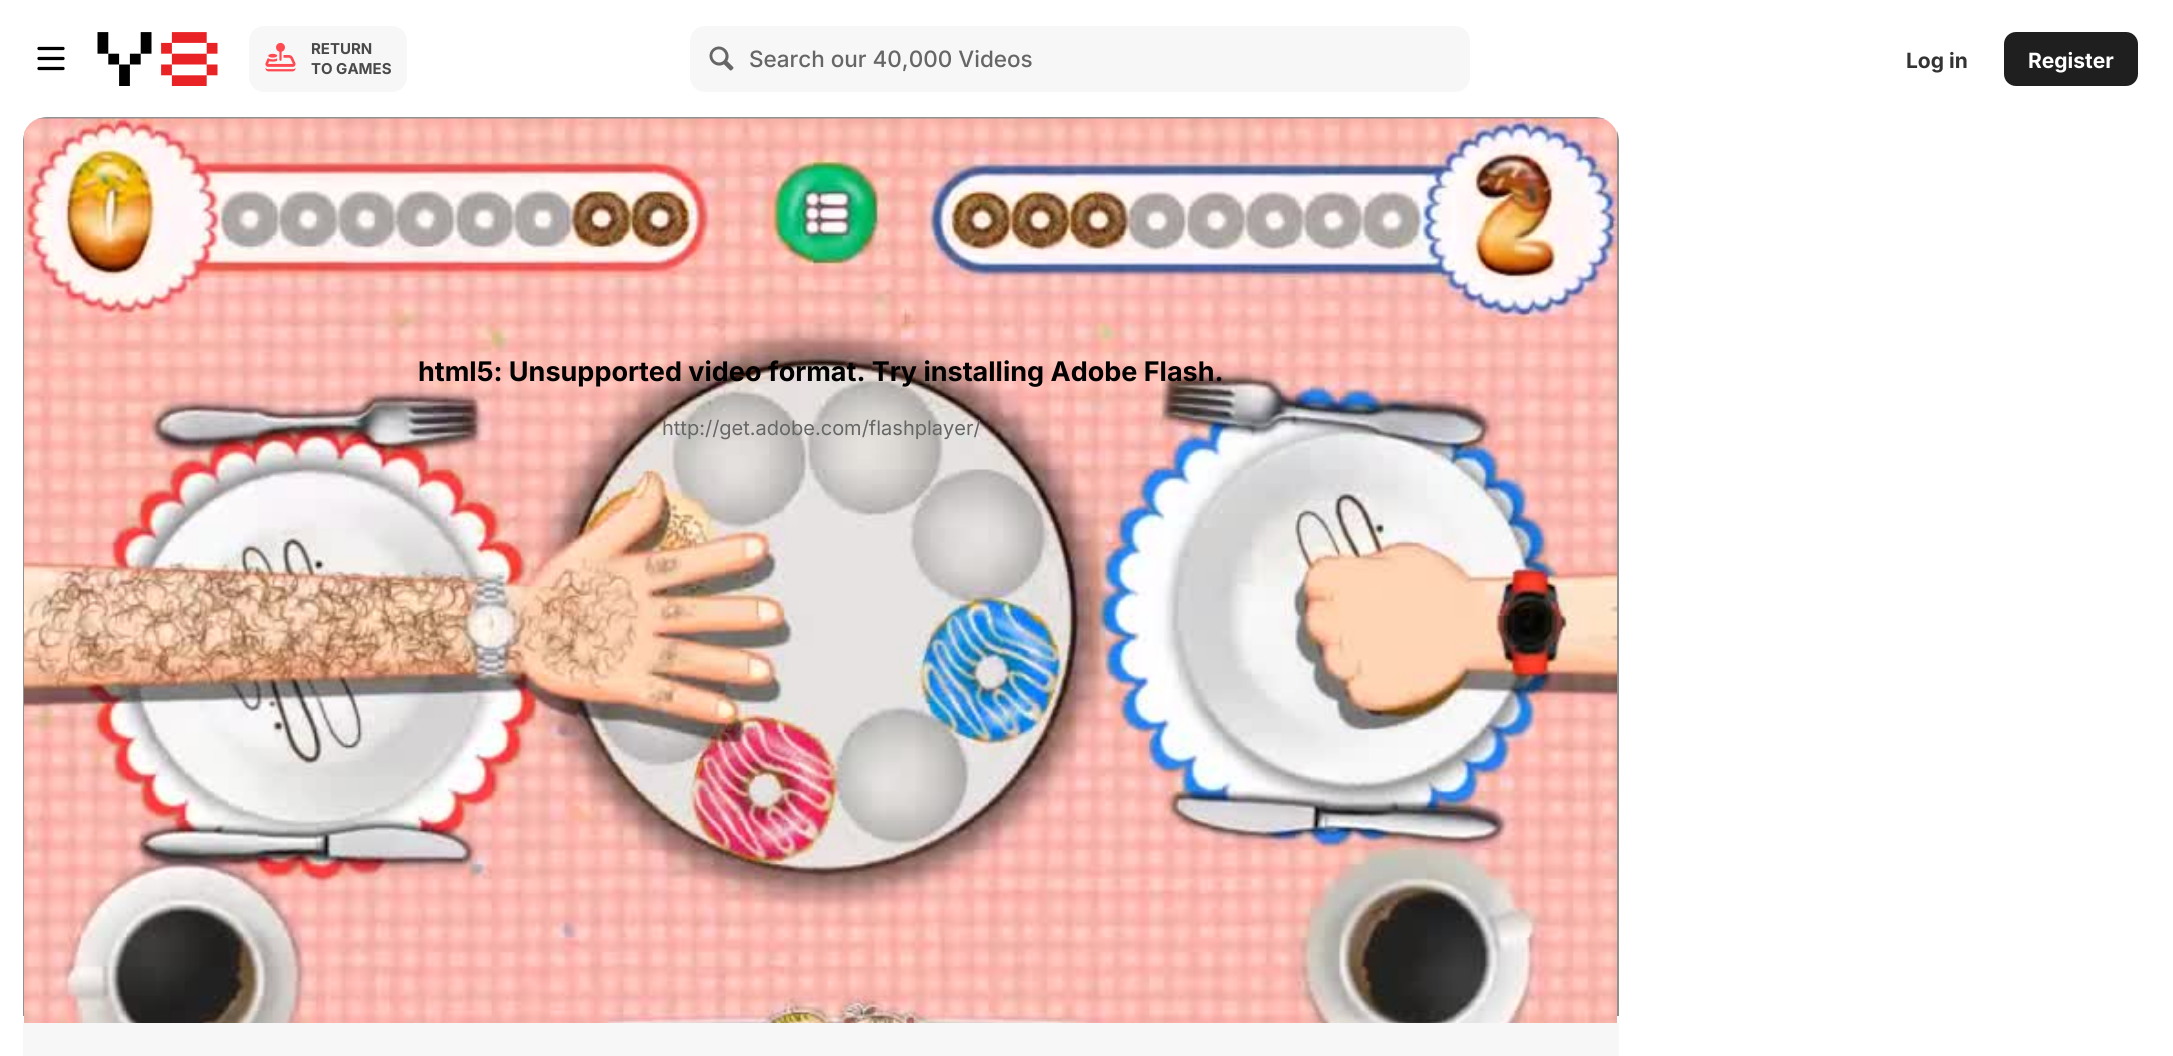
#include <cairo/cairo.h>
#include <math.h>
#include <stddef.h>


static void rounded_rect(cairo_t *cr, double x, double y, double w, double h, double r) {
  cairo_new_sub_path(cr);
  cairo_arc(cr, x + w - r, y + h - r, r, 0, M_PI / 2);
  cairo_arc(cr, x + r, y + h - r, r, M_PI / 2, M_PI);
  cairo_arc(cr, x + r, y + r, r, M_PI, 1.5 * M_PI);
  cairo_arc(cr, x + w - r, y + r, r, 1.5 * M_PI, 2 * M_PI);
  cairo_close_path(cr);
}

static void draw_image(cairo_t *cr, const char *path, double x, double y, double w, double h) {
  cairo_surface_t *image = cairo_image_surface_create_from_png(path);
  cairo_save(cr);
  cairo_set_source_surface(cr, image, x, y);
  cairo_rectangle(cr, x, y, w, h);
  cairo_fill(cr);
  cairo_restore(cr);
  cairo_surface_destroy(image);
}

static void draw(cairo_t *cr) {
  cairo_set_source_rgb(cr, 1, 1, 1);
  cairo_paint(cr);
  cairo_new_path(cr);
  cairo_move_to(cr, 39, 48.5);
  cairo_line_to(cr, 63, 48.5);
  cairo_move_to(cr, 39, 58.5);
  cairo_line_to(cr, 63, 58.5);
  cairo_move_to(cr, 63, 68.5);
  cairo_line_to(cr, 39, 68.5);
  cairo_set_source_rgb(cr, 0, 0, 0);
  cairo_set_line_width(cr, 3.3);
  cairo_set_line_cap(cr, CAIRO_LINE_CAP_ROUND);
  cairo_stroke(cr);
  draw_image(cr, "images/1.png", 97, 32, 121, 54);
  cairo_set_source_rgb(cr, 247 / 255.0, 247 / 255.0, 247 / 255.0);
  rounded_rect(cr, 249, 26, 158, 66, 15);
  cairo_fill(cr);
  draw_image(cr, "images/2.png", 265, 42, 31, 30);
  rounded_rect(cr, 690, 26, 780, 66, 15);
  cairo_fill(cr);
  draw_image(cr, "images/3.png", 709, 46, 25, 25);
  cairo_set_source_rgb(cr, 31 / 255.0, 31 / 255.0, 31 / 255.0);
  rounded_rect(cr, 2005, 33, 132, 52, 11);
  cairo_fill_preserve(cr);
  cairo_set_line_width(cr, 2);
  cairo_set_line_cap(cr, CAIRO_LINE_CAP_BUTT);
  cairo_stroke(cr);
  cairo_set_source_rgb(cr, 144 / 255.0, 144 / 255.0, 144 / 255.0);
  cairo_set_fill_rule(cr, CAIRO_FILL_RULE_EVEN_ODD);
  cairo_new_path(cr);
  cairo_move_to(cr, 23, 141);
  cairo_line_to(cr, 23, 1016);
  cairo_line_to(cr, 1619, 1016);
  cairo_line_to(cr, 1619, 141);
  cairo_curve_to(cr, 1619, 138, 1618, 134, 1617, 131);
  cairo_line_to(cr, 1617, 1014);
  cairo_line_to(cr, 25, 1014);
  cairo_line_to(cr, 25, 131);
  cairo_curve_to(cr, 24, 134, 23, 138, 23, 141);
  cairo_close_path(cr);
  cairo_move_to(cr, 47, 117);
  cairo_curve_to(cr, 44, 117, 40, 118, 37, 119);
  cairo_line_to(cr, 1605, 119);
  cairo_curve_to(cr, 1602, 118, 1598, 117, 1595, 117);
  cairo_close_path(cr);
  cairo_fill(cr);
  draw_image(cr, "images/4.png", 24, 118, 1593, 905);
  cairo_set_source_rgb(cr, 247 / 255.0, 247 / 255.0, 247 / 255.0);
  cairo_rectangle(cr, 23, 1023, 1596, 33);
  cairo_fill(cr);
  cairo_select_font_face(cr, "Inter", CAIRO_FONT_SLANT_NORMAL, CAIRO_FONT_WEIGHT_BOLD);
  cairo_set_font_size(cr, 15);
  cairo_set_source_rgb(cr, 74 / 255.0, 74 / 255.0, 74 / 255.0);
  cairo_move_to(cr, 311, 54);
  cairo_show_text(cr, "RETURN");
  cairo_move_to(cr, 311, 74);
  cairo_show_text(cr, "TO GAMES");
  cairo_select_font_face(cr, "Inter Medium", CAIRO_FONT_SLANT_NORMAL, CAIRO_FONT_WEIGHT_NORMAL);
  cairo_set_font_size(cr, 22.5);
  cairo_set_source_rgb(cr, 102 / 255.0, 102 / 255.0, 102 / 255.0);
  cairo_move_to(cr, 749, 67);
  cairo_show_text(cr, "Search our 40,000 Videos");
  cairo_select_font_face(cr, "Inter", CAIRO_FONT_SLANT_NORMAL, CAIRO_FONT_WEIGHT_BOLD);
  cairo_set_font_size(cr, 21);
  cairo_set_source_rgb(cr, 51 / 255.0, 51 / 255.0, 51 / 255.0);
  cairo_move_to(cr, 1906, 68);
  cairo_show_text(cr, "Log in");
  cairo_set_source_rgb(cr, 1, 1, 1);
  cairo_move_to(cr, 2028, 68);
  cairo_show_text(cr, "Register");
  cairo_set_font_size(cr, 27);
  cairo_set_source_rgb(cr, 0, 0, 0);
  cairo_move_to(cr, 418, 381);
  cairo_show_text(cr, "html5: Unsupported video format. Try installing Adobe Flash.");
  cairo_select_font_face(cr, "Inter", CAIRO_FONT_SLANT_NORMAL, CAIRO_FONT_WEIGHT_NORMAL);
  cairo_set_font_size(cr, 20);
  cairo_set_source_rgb(cr, 102 / 255.0, 102 / 255.0, 102 / 255.0);
  cairo_move_to(cr, 662, 435);
  cairo_show_text(cr, "http://get.adobe.com/flashplayer/");
}

int main(void) {
  cairo_surface_t *surface = cairo_image_surface_create(CAIRO_FORMAT_RGB24, 2173, 1056);
  cairo_t *cr = cairo_create(surface);
  cairo_font_options_t *options = cairo_font_options_create();
  cairo_font_options_set_hint_metrics(options, CAIRO_HINT_METRICS_OFF);
  cairo_font_options_set_hint_style(options, CAIRO_HINT_STYLE_NONE);
  cairo_set_font_options(cr, options);
  cairo_set_miter_limit(cr, 4);
  draw(cr);
  cairo_surface_write_to_png(surface, "out.png");
  cairo_font_options_destroy(options);
  cairo_destroy(cr);
  cairo_surface_destroy(surface);
  return 0;
}
